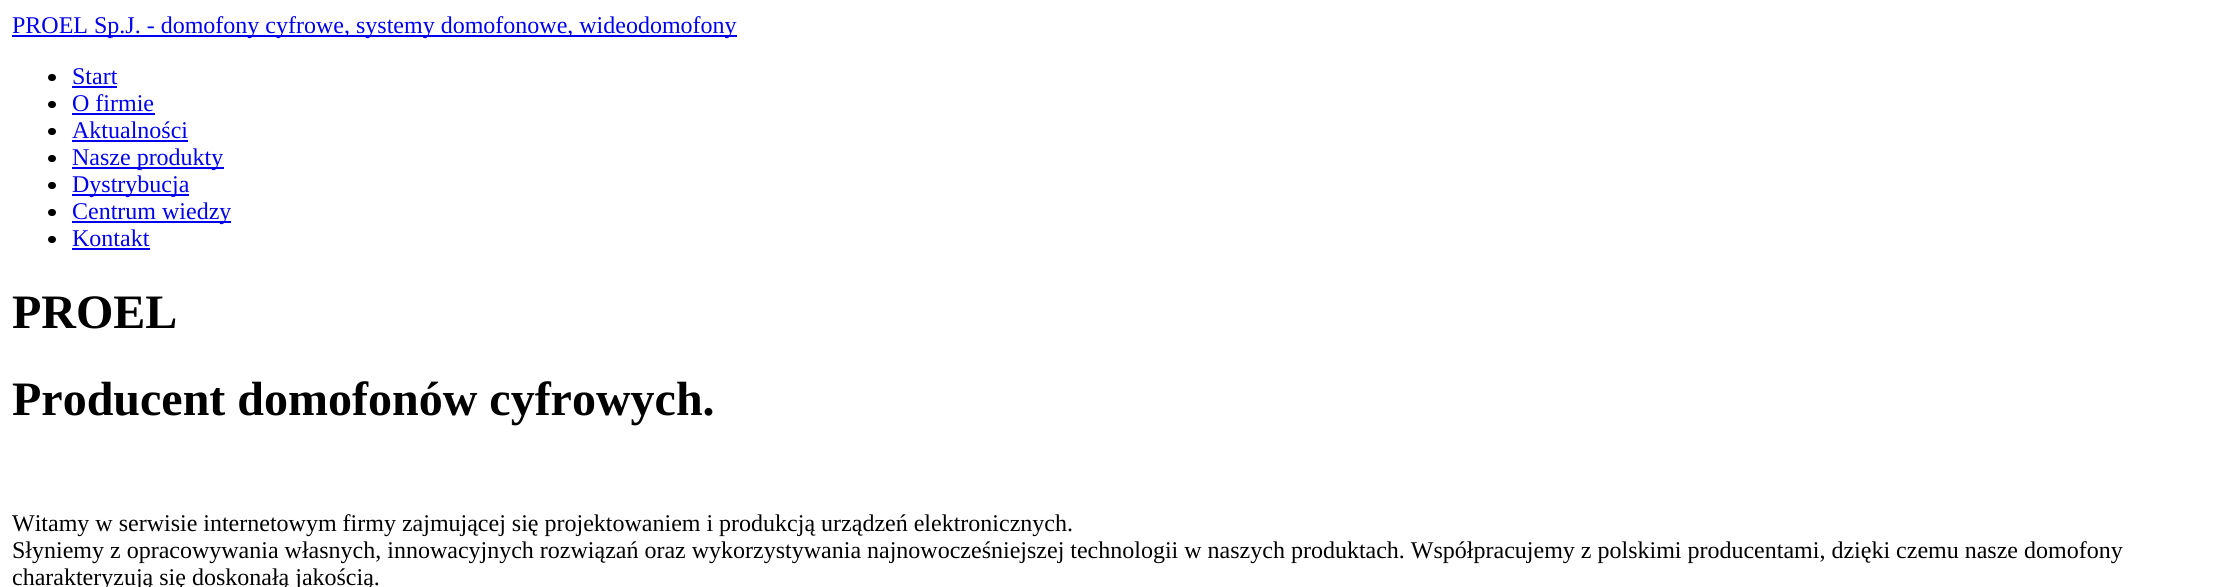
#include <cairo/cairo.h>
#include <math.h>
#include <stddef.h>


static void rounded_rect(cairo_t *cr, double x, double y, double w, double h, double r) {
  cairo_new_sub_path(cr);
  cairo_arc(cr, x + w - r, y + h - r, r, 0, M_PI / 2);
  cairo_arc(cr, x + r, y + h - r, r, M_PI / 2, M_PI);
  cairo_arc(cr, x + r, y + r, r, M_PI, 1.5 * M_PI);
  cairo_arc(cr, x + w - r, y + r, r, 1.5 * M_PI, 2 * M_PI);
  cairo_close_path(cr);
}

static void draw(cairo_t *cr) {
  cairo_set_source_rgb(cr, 1, 1, 1);
  cairo_paint(cr);
  cairo_set_source_rgb(cr, 0, 0, 238 / 255.0);
  cairo_rectangle(cr, 12, 35, 725, 2);
  cairo_fill(cr);
  cairo_set_source_rgb(cr, 0, 0, 0);
  rounded_rect(cr, 48, 74, 8, 7, 3.5);
  cairo_fill(cr);
  cairo_set_source_rgb(cr, 0, 0, 238 / 255.0);
  cairo_rectangle(cr, 72, 86, 45, 2);
  cairo_fill(cr);
  cairo_set_source_rgb(cr, 0, 0, 0);
  rounded_rect(cr, 48, 101, 8, 7, 3.5);
  cairo_fill(cr);
  cairo_set_source_rgb(cr, 0, 0, 238 / 255.0);
  cairo_rectangle(cr, 72, 113, 83, 2);
  cairo_fill(cr);
  cairo_set_source_rgb(cr, 0, 0, 0);
  rounded_rect(cr, 48, 128, 8, 7, 3.5);
  cairo_fill(cr);
  cairo_set_source_rgb(cr, 0, 0, 238 / 255.0);
  cairo_rectangle(cr, 72, 140, 116, 2);
  cairo_fill(cr);
  cairo_set_source_rgb(cr, 0, 0, 0);
  rounded_rect(cr, 48, 155, 8, 7, 3.5);
  cairo_fill(cr);
  cairo_set_source_rgb(cr, 0, 0, 238 / 255.0);
  cairo_rectangle(cr, 72, 167, 152, 2);
  cairo_fill(cr);
  cairo_set_source_rgb(cr, 0, 0, 0);
  rounded_rect(cr, 48, 182, 8, 7, 3.5);
  cairo_fill(cr);
  cairo_set_source_rgb(cr, 0, 0, 238 / 255.0);
  cairo_rectangle(cr, 72, 194, 117, 2);
  cairo_fill(cr);
  cairo_set_source_rgb(cr, 0, 0, 0);
  rounded_rect(cr, 48, 209, 8, 7, 3.5);
  cairo_fill(cr);
  cairo_set_source_rgb(cr, 0, 0, 238 / 255.0);
  cairo_rectangle(cr, 72, 221, 159, 2);
  cairo_fill(cr);
  cairo_set_source_rgb(cr, 0, 0, 0);
  rounded_rect(cr, 48, 236, 8, 7, 3.5);
  cairo_fill(cr);
  cairo_set_source_rgb(cr, 0, 0, 238 / 255.0);
  cairo_rectangle(cr, 72, 248, 78, 2);
  cairo_fill(cr);
  cairo_select_font_face(cr, "Liberation Serif", CAIRO_FONT_SLANT_NORMAL, CAIRO_FONT_WEIGHT_NORMAL);
  cairo_set_font_size(cr, 24);
  cairo_move_to(cr, 12, 33);
  cairo_show_text(cr, "PROEL Sp.J. - domofony cyfrowe, systemy domofonowe, wideodomofony");
  cairo_move_to(cr, 72, 84);
  cairo_show_text(cr, "Start");
  cairo_move_to(cr, 72, 111);
  cairo_show_text(cr, "O firmie");
  cairo_move_to(cr, 72, 138);
  cairo_show_text(cr, "Aktualności");
  cairo_move_to(cr, 72, 165);
  cairo_show_text(cr, "Nasze produkty");
  cairo_move_to(cr, 72, 192);
  cairo_show_text(cr, "Dystrybucja");
  cairo_move_to(cr, 72, 219);
  cairo_show_text(cr, "Centrum wiedzy");
  cairo_move_to(cr, 72, 246);
  cairo_show_text(cr, "Kontakt");
  cairo_select_font_face(cr, "Liberation Serif", CAIRO_FONT_SLANT_NORMAL, CAIRO_FONT_WEIGHT_BOLD);
  cairo_set_font_size(cr, 48);
  cairo_set_source_rgb(cr, 0, 0, 0);
  cairo_move_to(cr, 12, 328);
  cairo_show_text(cr, "PROEL");
  cairo_move_to(cr, 12, 415);
  cairo_show_text(cr, "Producent domofonów cyfrowych.");
  cairo_select_font_face(cr, "Liberation Serif", CAIRO_FONT_SLANT_NORMAL, CAIRO_FONT_WEIGHT_NORMAL);
  cairo_set_font_size(cr, 24);
  cairo_move_to(cr, 12, 531);
  cairo_show_text(cr, "Witamy w serwisie internetowym firmy zajmującej się projektowaniem i produkcją urządzeń elektronicznych.");
  cairo_move_to(cr, 12, 558);
  cairo_show_text(cr, "Słyniemy z opracowywania własnych, innowacyjnych rozwiązań oraz wykorzystywania najnowocześniejszej technologii w naszych produktach. Współpracujemy z polskimi producentami, dzięki czemu nasze domofony");
  cairo_move_to(cr, 12, 585);
  cairo_show_text(cr, "charakteryzują się doskonałą jakością.");
}

int main(void) {
  cairo_surface_t *surface = cairo_image_surface_create(CAIRO_FORMAT_RGB24, 2227, 587);
  cairo_t *cr = cairo_create(surface);
  cairo_font_options_t *options = cairo_font_options_create();
  cairo_font_options_set_hint_metrics(options, CAIRO_HINT_METRICS_OFF);
  cairo_font_options_set_hint_style(options, CAIRO_HINT_STYLE_NONE);
  cairo_set_font_options(cr, options);
  cairo_set_miter_limit(cr, 4);
  draw(cr);
  cairo_surface_write_to_png(surface, "out.png");
  cairo_font_options_destroy(options);
  cairo_destroy(cr);
  cairo_surface_destroy(surface);
  return 0;
}
